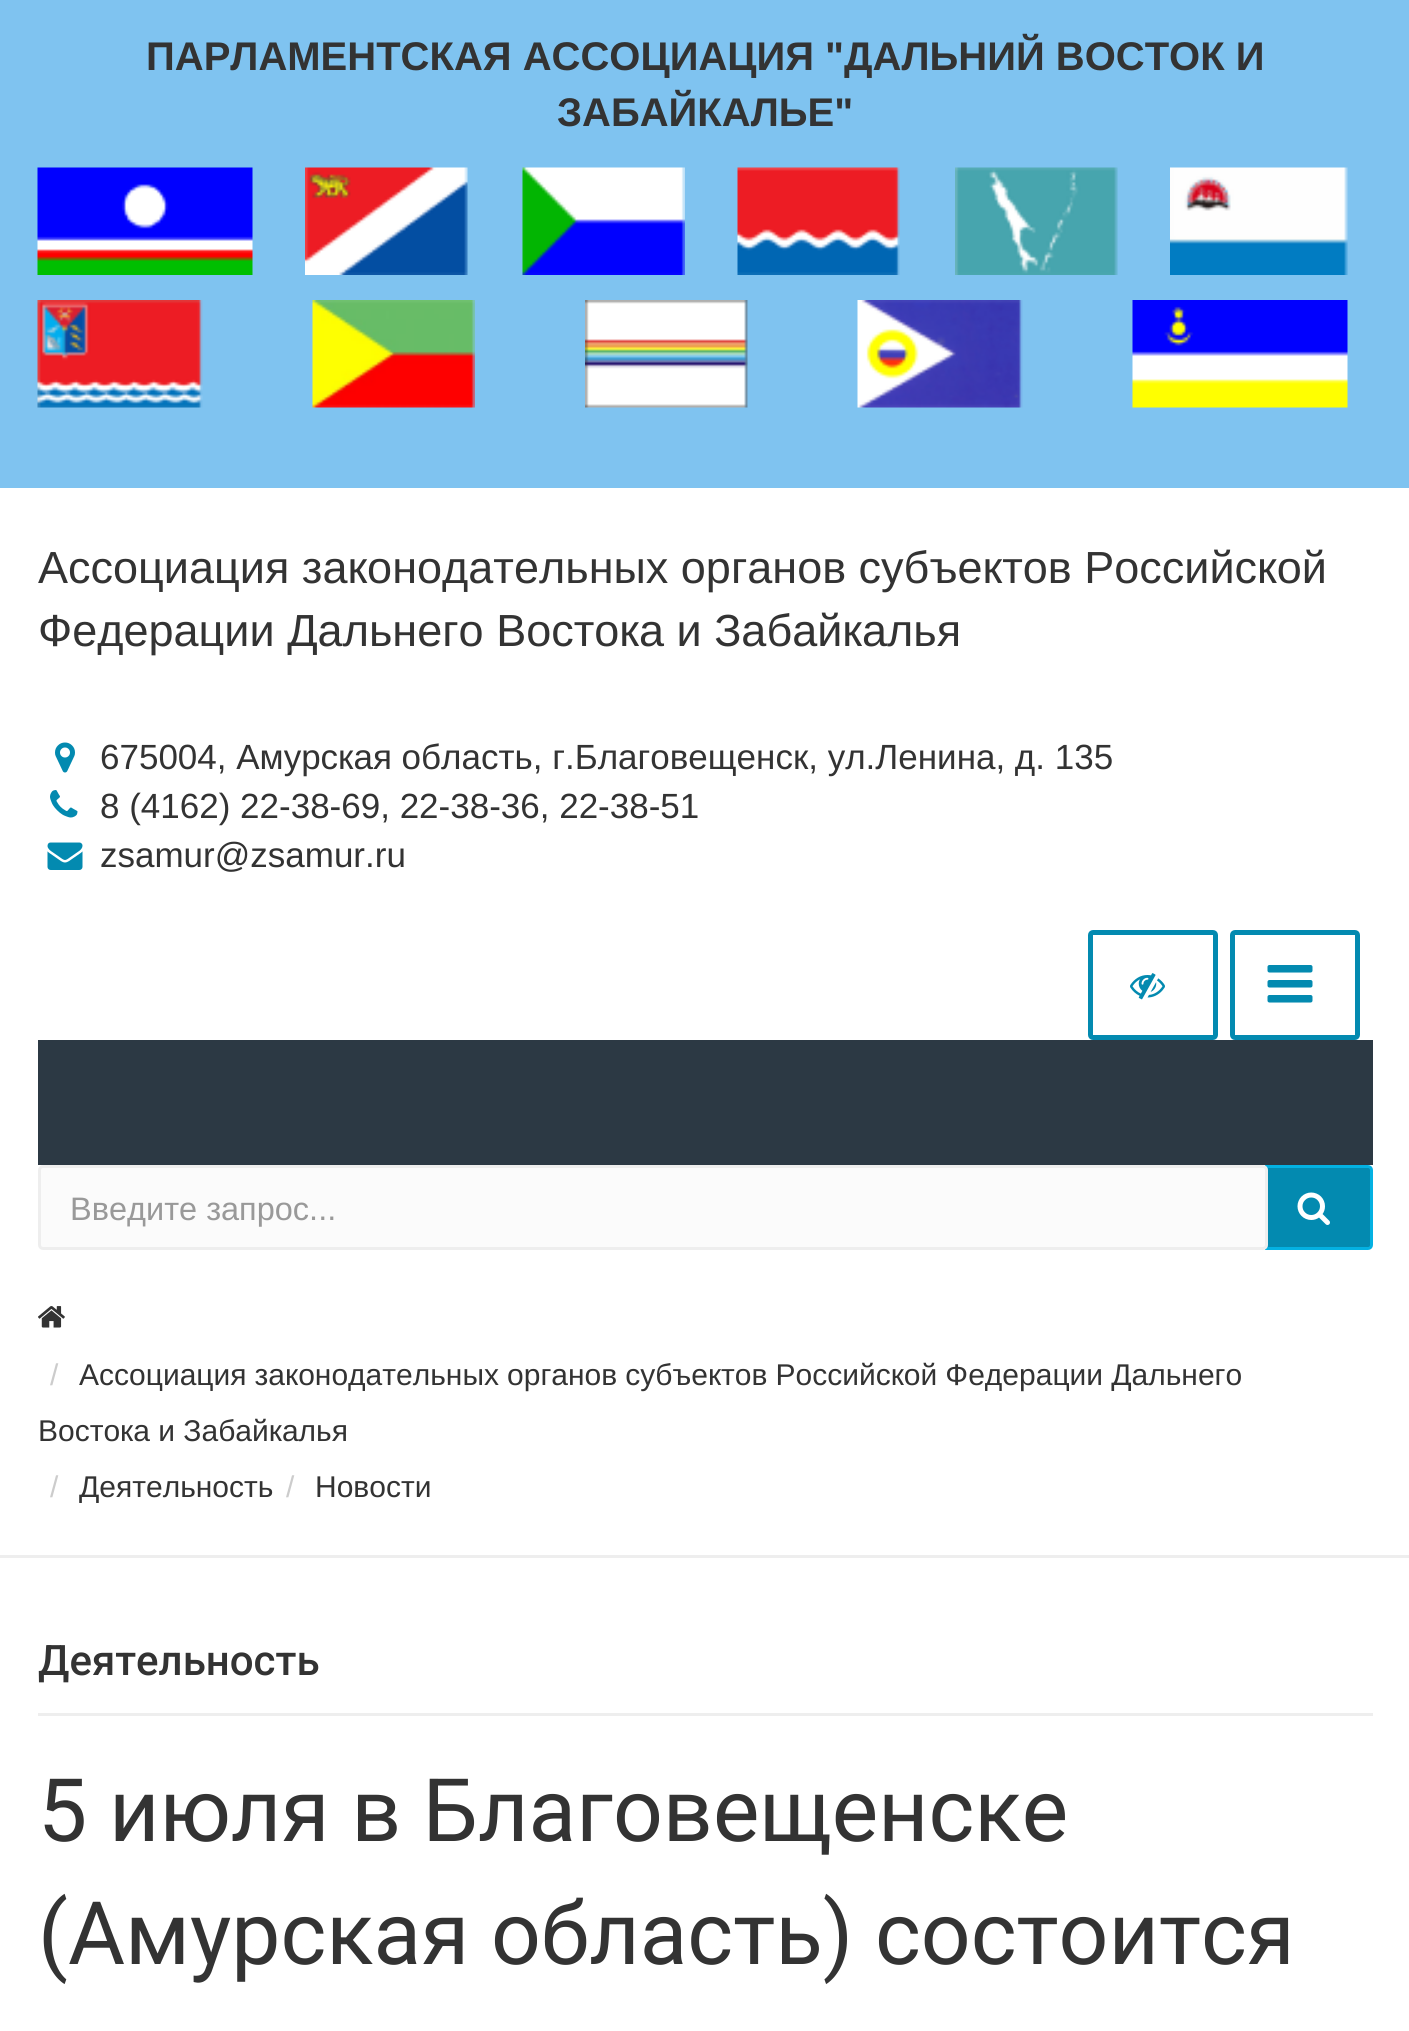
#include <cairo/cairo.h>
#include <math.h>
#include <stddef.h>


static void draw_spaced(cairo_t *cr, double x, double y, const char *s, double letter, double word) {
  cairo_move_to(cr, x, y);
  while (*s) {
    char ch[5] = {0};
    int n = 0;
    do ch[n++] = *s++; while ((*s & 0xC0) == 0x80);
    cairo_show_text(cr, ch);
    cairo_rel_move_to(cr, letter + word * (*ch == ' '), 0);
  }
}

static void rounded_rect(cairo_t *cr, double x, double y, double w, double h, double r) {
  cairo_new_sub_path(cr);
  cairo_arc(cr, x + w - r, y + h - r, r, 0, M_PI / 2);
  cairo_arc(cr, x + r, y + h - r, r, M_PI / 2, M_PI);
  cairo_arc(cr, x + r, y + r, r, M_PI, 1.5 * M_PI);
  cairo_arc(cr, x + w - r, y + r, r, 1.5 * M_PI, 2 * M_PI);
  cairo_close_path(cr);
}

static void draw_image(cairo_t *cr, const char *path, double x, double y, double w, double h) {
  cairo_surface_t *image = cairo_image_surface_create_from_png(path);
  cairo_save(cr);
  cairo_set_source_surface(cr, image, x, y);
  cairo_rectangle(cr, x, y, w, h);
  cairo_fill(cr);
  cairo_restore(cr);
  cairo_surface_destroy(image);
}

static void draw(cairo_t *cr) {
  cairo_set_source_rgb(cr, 1, 1, 1);
  cairo_paint(cr);
  cairo_set_source_rgb(cr, 127 / 255.0, 195 / 255.0, 240 / 255.0);
  cairo_rectangle(cr, 0, 0, 1409, 488);
  cairo_fill(cr);
  draw_image(cr, "images/1.png", 37, 167, 216, 108);
  draw_image(cr, "images/2.png", 305, 167, 163, 108);
  draw_image(cr, "images/3.png", 522, 167, 163, 108);
  draw_image(cr, "images/4.png", 737, 167, 163, 108);
  draw_image(cr, "images/5.png", 955, 167, 163, 108);
  draw_image(cr, "images/6.png", 1170, 167, 178, 108);
  draw_image(cr, "images/7.png", 37, 300, 166, 108);
  draw_image(cr, "images/8.png", 312, 300, 163, 108);
  draw_image(cr, "images/9.png", 585, 300, 163, 108);
  draw_image(cr, "images/10.png", 857, 300, 166, 108);
  draw_image(cr, "images/11.png", 1132, 300, 216, 108);
  draw_image(cr, "images/12.png", 55, 742, 20, 31);
  draw_image(cr, "images/13.png", 50, 790, 28, 28);
  draw_image(cr, "images/14.png", 47, 842, 36, 28);
  rounded_rect(cr, 1090.5, 932.5, 125, 105, 2.5);
  cairo_set_source_rgb(cr, 3 / 255.0, 138 / 255.0, 176 / 255.0);
  cairo_set_line_width(cr, 5);
  cairo_stroke(cr);
  draw_image(cr, "images/15.png", 1130, 973, 35, 27);
  rounded_rect(cr, 1232.5, 932.5, 125, 105, 2.5);
  cairo_stroke(cr);
  draw_image(cr, "images/16.png", 1267, 965, 46, 38);
  cairo_set_source_rgb(cr, 44 / 255.0, 57 / 255.0, 68 / 255.0);
  cairo_rectangle(cr, 38, 1040, 1335, 125);
  cairo_fill(cr);
  cairo_set_source_rgb(cr, 3 / 255.0, 138 / 255.0, 176 / 255.0);
  cairo_new_path(cr);
  cairo_move_to(cr, 1266.5, 1166.5);
  cairo_line_to(cr, 1368, 1166.5);
  cairo_curve_to(cr, 1370, 1166.5, 1371.5, 1168, 1371.5, 1170);
  cairo_line_to(cr, 1371.5, 1245);
  cairo_curve_to(cr, 1371.5, 1247, 1370, 1248.5, 1368, 1248.5);
  cairo_line_to(cr, 1266.5, 1248.5);
  cairo_close_path(cr);
  cairo_fill_preserve(cr);
  cairo_set_source_rgb(cr, 4 / 255.0, 177 / 255.0, 226 / 255.0);
  cairo_set_line_width(cr, 3);
  cairo_stroke(cr);
  cairo_set_source_rgb(cr, 251 / 255.0, 251 / 255.0, 251 / 255.0);
  rounded_rect(cr, 39.5, 1166.5, 1227, 82, 3.5);
  cairo_fill_preserve(cr);
  cairo_set_source_rgb(cr, 238 / 255.0, 238 / 255.0, 238 / 255.0);
  cairo_stroke(cr);
  draw_image(cr, "images/17.png", 1297, 1192, 33, 33);
  cairo_rectangle(cr, 0, 1555, 1409, 3);
  cairo_fill(cr);
  draw_image(cr, "images/18.png", 38, 1306, 27, 22);
  cairo_rectangle(cr, 38, 1713, 1335, 3);
  cairo_fill(cr);
  cairo_select_font_face(cr, "Liberation Sans", CAIRO_FONT_SLANT_NORMAL, CAIRO_FONT_WEIGHT_BOLD);
  cairo_set_font_size(cr, 40);
  cairo_set_source_rgb(cr, 51 / 255.0, 51 / 255.0, 51 / 255.0);
  cairo_move_to(cr, 146, 70);
  cairo_show_text(cr, "ПАРЛАМЕНТСКАЯ АССОЦИАЦИЯ \"ДАЛЬНИЙ ВОСТОК И");
  cairo_move_to(cr, 557, 126);
  cairo_show_text(cr, "ЗАБАЙКАЛЬЕ\"");
  cairo_select_font_face(cr, "Liberation Sans", CAIRO_FONT_SLANT_NORMAL, CAIRO_FONT_WEIGHT_NORMAL);
  cairo_set_font_size(cr, 45);
  cairo_move_to(cr, 38, 583);
  cairo_show_text(cr, "Ассоциация законодательных органов субъектов Российской");
  cairo_move_to(cr, 38, 646);
  cairo_show_text(cr, "Федерации Дальнего Востока и Забайкалья");
  cairo_set_font_size(cr, 35);
  cairo_move_to(cr, 100, 769);
  cairo_show_text(cr, "675004, Амурская область, г.Благовещенск, ул.Ленина, д. 135");
  cairo_move_to(cr, 100, 818);
  cairo_show_text(cr, "8 (4162) 22-38-69, 22-38-36, 22-38-51");
  cairo_move_to(cr, 100, 867);
  cairo_show_text(cr, "zsamur@zsamur.ru");
  cairo_set_font_size(cr, 32.5);
  cairo_set_source_rgb(cr, 153 / 255.0, 153 / 255.0, 153 / 255.0);
  cairo_move_to(cr, 70, 1220);
  cairo_show_text(cr, "Введите запрос...");
  cairo_set_font_size(cr, 30);
  cairo_set_source_rgb(cr, 204 / 255.0, 204 / 255.0, 204 / 255.0);
  cairo_move_to(cr, 50, 1385);
  cairo_show_text(cr, "/");
  cairo_set_source_rgb(cr, 51 / 255.0, 51 / 255.0, 51 / 255.0);
  draw_spaced(cr, 79, 1385, "Ассоциация законодательных органов субъектов Российской Федерации Дальнего", 0, -0.25);
  cairo_move_to(cr, 38, 1441);
  cairo_show_text(cr, "Востока и Забайкалья");
  cairo_set_source_rgb(cr, 204 / 255.0, 204 / 255.0, 204 / 255.0);
  cairo_move_to(cr, 50, 1497);
  cairo_show_text(cr, "/");
  cairo_set_source_rgb(cr, 51 / 255.0, 51 / 255.0, 51 / 255.0);
  cairo_move_to(cr, 79, 1497);
  cairo_show_text(cr, "Деятельность");
  cairo_set_source_rgb(cr, 204 / 255.0, 204 / 255.0, 204 / 255.0);
  cairo_move_to(cr, 286, 1497);
  cairo_show_text(cr, "/");
  cairo_set_source_rgb(cr, 51 / 255.0, 51 / 255.0, 51 / 255.0);
  cairo_move_to(cr, 315, 1497);
  cairo_show_text(cr, "Новости");
  cairo_select_font_face(cr, "Roboto Medium", CAIRO_FONT_SLANT_NORMAL, CAIRO_FONT_WEIGHT_NORMAL);
  cairo_set_font_size(cr, 42);
  cairo_move_to(cr, 38, 1675);
  cairo_show_text(cr, "Деятельность");
  cairo_select_font_face(cr, "Roboto", CAIRO_FONT_SLANT_NORMAL, CAIRO_FONT_WEIGHT_NORMAL);
  cairo_set_font_size(cr, 87.5);
  cairo_move_to(cr, 38, 1841);
  cairo_show_text(cr, "5 июля в Благовещенске");
  cairo_move_to(cr, 38, 1964);
  cairo_show_text(cr, "(Амурская область) состоится");
}

int main(void) {
  cairo_surface_t *surface = cairo_image_surface_create(CAIRO_FORMAT_RGB24, 1409, 2031);
  cairo_t *cr = cairo_create(surface);
  cairo_font_options_t *options = cairo_font_options_create();
  cairo_font_options_set_hint_metrics(options, CAIRO_HINT_METRICS_OFF);
  cairo_font_options_set_hint_style(options, CAIRO_HINT_STYLE_NONE);
  cairo_set_font_options(cr, options);
  cairo_set_miter_limit(cr, 4);
  draw(cr);
  cairo_surface_write_to_png(surface, "out.png");
  cairo_font_options_destroy(options);
  cairo_destroy(cr);
  cairo_surface_destroy(surface);
  return 0;
}
